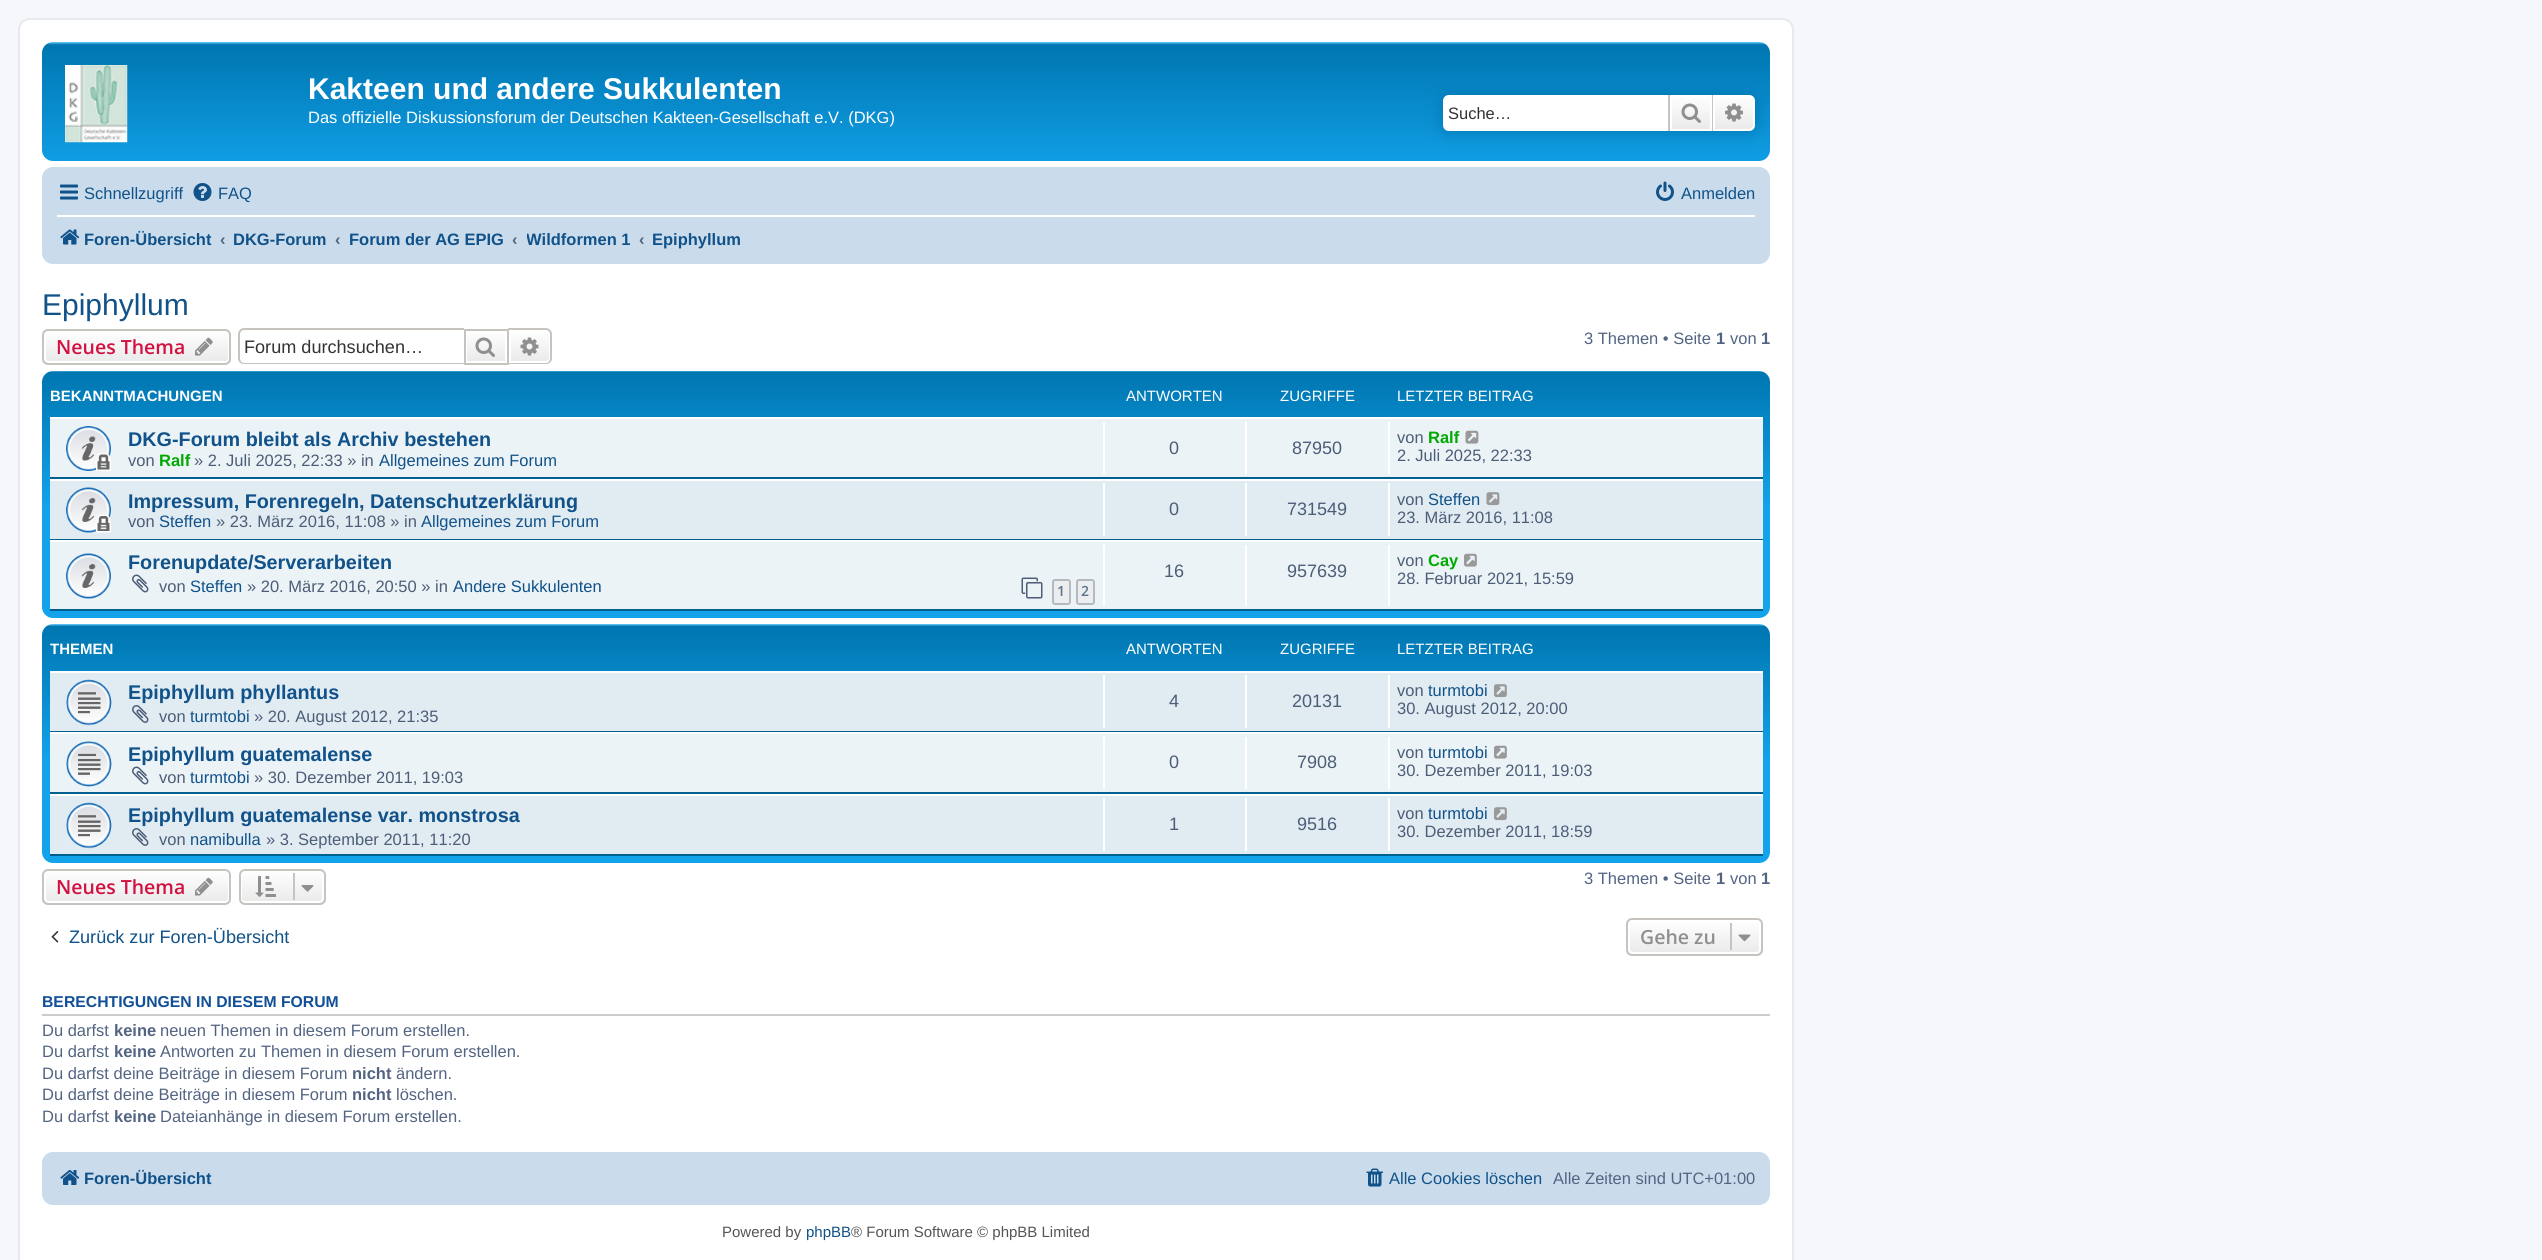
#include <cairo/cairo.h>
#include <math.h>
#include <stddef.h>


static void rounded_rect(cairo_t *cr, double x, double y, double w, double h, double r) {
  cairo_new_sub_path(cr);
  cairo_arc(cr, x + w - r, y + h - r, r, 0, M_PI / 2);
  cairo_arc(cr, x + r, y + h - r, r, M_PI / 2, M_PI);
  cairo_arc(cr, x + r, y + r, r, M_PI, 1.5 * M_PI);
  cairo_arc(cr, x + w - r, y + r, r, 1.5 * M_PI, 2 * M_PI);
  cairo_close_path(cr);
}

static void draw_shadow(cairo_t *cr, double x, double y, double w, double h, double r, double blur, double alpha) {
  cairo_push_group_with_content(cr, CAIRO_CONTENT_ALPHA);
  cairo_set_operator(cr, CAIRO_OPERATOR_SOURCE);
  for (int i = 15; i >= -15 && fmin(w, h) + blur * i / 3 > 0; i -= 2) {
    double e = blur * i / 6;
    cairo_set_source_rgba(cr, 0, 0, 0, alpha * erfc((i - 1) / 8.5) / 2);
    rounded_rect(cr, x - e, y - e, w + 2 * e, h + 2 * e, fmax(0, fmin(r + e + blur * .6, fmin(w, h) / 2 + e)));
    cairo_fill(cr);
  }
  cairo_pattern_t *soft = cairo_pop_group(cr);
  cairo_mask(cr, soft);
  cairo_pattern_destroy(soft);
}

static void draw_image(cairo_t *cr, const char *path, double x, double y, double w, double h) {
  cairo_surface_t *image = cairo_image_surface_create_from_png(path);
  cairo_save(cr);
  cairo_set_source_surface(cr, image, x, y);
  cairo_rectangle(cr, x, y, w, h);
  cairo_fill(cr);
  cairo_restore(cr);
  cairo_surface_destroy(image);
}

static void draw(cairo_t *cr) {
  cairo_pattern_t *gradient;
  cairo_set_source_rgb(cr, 245 / 255.0, 247 / 255.0, 250 / 255.0);
  cairo_paint(cr);
  cairo_set_source_rgb(cr, 1, 1, 1);
  rounded_rect(cr, 19, 19, 1774, 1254, 11);
  cairo_fill_preserve(cr);
  cairo_set_source_rgb(cr, 230 / 255.0, 233 / 255.0, 237 / 255.0);
  cairo_stroke(cr);
  gradient = cairo_pattern_create_linear(906, 42, 906, 180);
  cairo_pattern_add_color_stop_rgba(gradient, 0, 106 / 255.0, 206 / 255.0, 1, 1);
  cairo_pattern_add_color_stop_rgba(gradient, 0.02, 0, 118 / 255.0, 177 / 255.0, 1);
  cairo_pattern_add_color_stop_rgba(gradient, 1, 18 / 255.0, 163 / 255.0, 235 / 255.0, 1);
  cairo_set_source(cr, gradient);
  cairo_pattern_destroy(gradient);
  rounded_rect(cr, 42, 42, 1728, 119, 11);
  cairo_fill(cr);
  draw_image(cr, "images/1.png", 65, 65, 63, 78);
  cairo_set_source_rgb(cr, 0, 117 / 255.0, 176 / 255.0);
  draw_shadow(cr, 1443, 95, 312, 36, 6, 7.5, 1);
  cairo_set_source_rgb(cr, 1, 1, 1);
  cairo_new_path(cr);
  cairo_move_to(cr, 1449, 95);
  cairo_line_to(cr, 1668, 95);
  cairo_line_to(cr, 1668, 131);
  cairo_line_to(cr, 1449, 131);
  cairo_curve_to(cr, 1445.5, 131, 1443, 128.5, 1443, 125);
  cairo_line_to(cr, 1443, 101);
  cairo_curve_to(cr, 1443, 97.5, 1445.5, 95, 1449, 95);
  cairo_close_path(cr);
  cairo_fill(cr);
  gradient = cairo_pattern_create_linear(1691, 95, 1691, 131);
  cairo_pattern_add_color_stop_rgba(gradient, 0, 1, 1, 1, 1);
  cairo_pattern_add_color_stop_rgba(gradient, 1, 233 / 255.0, 233 / 255.0, 233 / 255.0, 1);
  cairo_set_source(cr, gradient);
  cairo_pattern_destroy(gradient);
  cairo_rectangle(cr, 1672, 97, 38, 32);
  cairo_fill(cr);
  cairo_rectangle(cr, 1671, 96, 40, 34);
  cairo_set_source_rgb(cr, 1, 1, 1);
  cairo_stroke(cr);
  cairo_set_source_rgb(cr, 199 / 255.0, 195 / 255.0, 191 / 255.0);
  cairo_rectangle(cr, 1712, 95, 1, 36);
  cairo_fill(cr);
  cairo_rectangle(cr, 1668, 95, 2, 36);
  cairo_fill(cr);
  draw_image(cr, "images/2.png", 1681, 103, 20, 20);
  gradient = cairo_pattern_create_linear(1734, 95, 1734, 131);
  cairo_pattern_add_color_stop_rgba(gradient, 0, 1, 1, 1, 1);
  cairo_pattern_add_color_stop_rgba(gradient, 1, 233 / 255.0, 233 / 255.0, 233 / 255.0, 1);
  cairo_set_source(cr, gradient);
  cairo_pattern_destroy(gradient);
  cairo_new_path(cr);
  cairo_move_to(cr, 1714, 96);
  cairo_line_to(cr, 1749, 96);
  cairo_curve_to(cr, 1752, 96, 1754, 98, 1754, 101);
  cairo_line_to(cr, 1754, 125);
  cairo_curve_to(cr, 1754, 128, 1752, 130, 1749, 130);
  cairo_line_to(cr, 1714, 130);
  cairo_close_path(cr);
  cairo_fill_preserve(cr);
  cairo_set_source_rgb(cr, 1, 1, 1);
  cairo_stroke(cr);
  draw_image(cr, "images/3.png", 1725, 103, 18, 19);
  cairo_set_source_rgb(cr, 202 / 255.0, 220 / 255.0, 235 / 255.0);
  rounded_rect(cr, 42, 167, 1728, 97, 11);
  cairo_fill(cr);
  draw_image(cr, "images/4.png", 60, 184, 18, 16);
  draw_image(cr, "images/5.png", 193, 183, 19, 18);
  draw_image(cr, "images/6.png", 1656, 181, 18, 20);
  cairo_set_source_rgb(cr, 1, 1, 1);
  cairo_rectangle(cr, 57, 215, 1698, 2);
  cairo_fill(cr);
  draw_image(cr, "images/7.png", 60, 229, 20, 16);
  cairo_save(cr);
  rounded_rect(cr, 42, 329, 189, 36, 6);
  cairo_clip(cr);
  gradient = cairo_pattern_create_linear(137, 330, 137, 363);
  cairo_pattern_add_color_stop_rgba(gradient, 0, 1, 1, 1, 1);
  cairo_pattern_add_color_stop_rgba(gradient, 1, 233 / 255.0, 233 / 255.0, 233 / 255.0, 1);
  cairo_set_source(cr, gradient);
  cairo_pattern_destroy(gradient);
  cairo_rectangle(cr, 42, 330, 189, 33);
  cairo_fill(cr);
  cairo_restore(cr);
  rounded_rect(cr, 45, 331, 184, 31, 4);
  cairo_stroke(cr);
  rounded_rect(cr, 43, 330, 187, 34, 5);
  cairo_set_source_rgb(cr, 199 / 255.0, 195 / 255.0, 191 / 255.0);
  cairo_stroke(cr);
  draw_image(cr, "images/8.png", 195, 337, 18, 19);
  cairo_set_fill_rule(cr, CAIRO_FILL_RULE_EVEN_ODD);
  cairo_new_path(cr);
  cairo_move_to(cr, 244, 328);
  cairo_line_to(cr, 464, 328);
  cairo_line_to(cr, 464, 364);
  cairo_line_to(cr, 244, 364);
  cairo_curve_to(cr, 241, 364, 238, 362, 238, 358);
  cairo_line_to(cr, 238, 334);
  cairo_curve_to(cr, 238, 331, 241, 328, 244, 328);
  cairo_close_path(cr);
  cairo_move_to(cr, 244, 330);
  cairo_line_to(cr, 464, 330);
  cairo_line_to(cr, 464, 363);
  cairo_line_to(cr, 244, 363);
  cairo_curve_to(cr, 242, 363, 240, 361, 240, 358);
  cairo_line_to(cr, 240, 334);
  cairo_curve_to(cr, 240, 332, 242, 330, 244, 330);
  cairo_close_path(cr);
  cairo_fill(cr);
  gradient = cairo_pattern_create_linear(486, 330, 486, 363);
  cairo_pattern_add_color_stop_rgba(gradient, 0, 1, 1, 1, 1);
  cairo_pattern_add_color_stop_rgba(gradient, 1, 233 / 255.0, 233 / 255.0, 233 / 255.0, 1);
  cairo_set_source(cr, gradient);
  cairo_pattern_destroy(gradient);
  cairo_rectangle(cr, 467, 334, 38, 27);
  cairo_fill(cr);
  cairo_rectangle(cr, 465, 330, 43, 34);
  cairo_set_source_rgb(cr, 199 / 255.0, 195 / 255.0, 191 / 255.0);
  cairo_stroke(cr);
  draw_image(cr, "images/9.png", 475, 337, 20, 20);
  gradient = cairo_pattern_create_linear(530, 330, 530, 363);
  cairo_pattern_add_color_stop_rgba(gradient, 0, 1, 1, 1, 1);
  cairo_pattern_add_color_stop_rgba(gradient, 1, 233 / 255.0, 233 / 255.0, 233 / 255.0, 1);
  cairo_set_source(cr, gradient);
  cairo_pattern_destroy(gradient);
  cairo_new_path(cr);
  cairo_move_to(cr, 510, 331);
  cairo_line_to(cr, 546, 331);
  cairo_curve_to(cr, 548, 331, 550, 333, 550, 335);
  cairo_line_to(cr, 550, 358);
  cairo_curve_to(cr, 550, 360, 548, 362, 546, 362);
  cairo_line_to(cr, 510, 362);
  cairo_close_path(cr);
  cairo_fill_preserve(cr);
  cairo_set_source_rgb(cr, 1, 1, 1);
  cairo_stroke(cr);
  cairo_set_source_rgb(cr, 199 / 255.0, 195 / 255.0, 191 / 255.0);
  cairo_new_path(cr);
  cairo_move_to(cr, 508, 328);
  cairo_line_to(cr, 546, 328);
  cairo_curve_to(cr, 549, 328, 552, 331, 552, 334);
  cairo_line_to(cr, 552, 358);
  cairo_curve_to(cr, 552, 362, 549, 364, 546, 364);
  cairo_line_to(cr, 508, 364);
  cairo_close_path(cr);
  cairo_move_to(cr, 508, 330);
  cairo_line_to(cr, 546, 330);
  cairo_curve_to(cr, 548, 330, 550, 332, 550, 334);
  cairo_line_to(cr, 550, 358);
  cairo_curve_to(cr, 550, 361, 548, 363, 546, 363);
  cairo_line_to(cr, 508, 363);
  cairo_close_path(cr);
  cairo_fill(cr);
  draw_image(cr, "images/10.png", 520, 337, 19, 19);
  gradient = cairo_pattern_create_linear(906, 370, 906, 618);
  cairo_pattern_add_color_stop_rgba(gradient, 0, 106 / 255.0, 206 / 255.0, 1, 1);
  cairo_pattern_add_color_stop_rgba(gradient, 0.01, 0, 118 / 255.0, 177 / 255.0, 1);
  cairo_pattern_add_color_stop_rgba(gradient, 0.56, 18 / 255.0, 163 / 255.0, 235 / 255.0, 1);
  cairo_pattern_add_color_stop_rgba(gradient, 1, 18 / 255.0, 163 / 255.0, 235 / 255.0, 1);
  cairo_set_source(cr, gradient);
  cairo_pattern_destroy(gradient);
  rounded_rect(cr, 42, 371, 1728, 247, 11);
  cairo_fill(cr);
  cairo_set_source_rgb(cr, 236 / 255.0, 243 / 255.0, 247 / 255.0);
  cairo_rectangle(cr, 50, 419, 1713, 58);
  cairo_fill(cr);
  cairo_set_source_rgb(cr, 1, 1, 1);
  cairo_rectangle(cr, 50, 417, 1713, 2);
  cairo_fill(cr);
  cairo_set_source_rgb(cr, 0, 96 / 255.0, 143 / 255.0);
  cairo_rectangle(cr, 50, 477, 1713, 2);
  cairo_fill(cr);
  draw_image(cr, "images/11.png", 66, 426, 45, 45);
  cairo_set_source_rgb(cr, 1, 1, 1);
  cairo_rectangle(cr, 1103, 422, 2, 52);
  cairo_fill(cr);
  cairo_rectangle(cr, 1245, 422, 2, 52);
  cairo_fill(cr);
  cairo_rectangle(cr, 1388, 422, 2, 52);
  cairo_fill(cr);
  draw_image(cr, "images/12.png", 1465, 430, 14, 14);
  cairo_set_source_rgb(cr, 225 / 255.0, 235 / 255.0, 242 / 255.0);
  cairo_rectangle(cr, 50, 481, 1713, 58);
  cairo_fill(cr);
  cairo_set_source_rgb(cr, 1, 1, 1);
  cairo_rectangle(cr, 50, 479, 1713, 2);
  cairo_fill(cr);
  cairo_set_source_rgb(cr, 0, 96 / 255.0, 143 / 255.0);
  cairo_rectangle(cr, 50, 539, 1713, 1);
  cairo_fill(cr);
  draw_image(cr, "images/13.png", 66, 487, 45, 46);
  cairo_set_source_rgb(cr, 1, 1, 1);
  cairo_rectangle(cr, 1103, 483, 2, 53);
  cairo_fill(cr);
  cairo_rectangle(cr, 1245, 483, 2, 53);
  cairo_fill(cr);
  cairo_rectangle(cr, 1388, 483, 2, 53);
  cairo_fill(cr);
  draw_image(cr, "images/14.png", 1486, 492, 14, 14);
  cairo_set_source_rgb(cr, 236 / 255.0, 243 / 255.0, 247 / 255.0);
  cairo_rectangle(cr, 50, 542, 1713, 67);
  cairo_fill(cr);
  cairo_set_source_rgb(cr, 1, 1, 1);
  cairo_rectangle(cr, 50, 540, 1713, 2);
  cairo_fill(cr);
  cairo_set_source_rgb(cr, 0, 96 / 255.0, 143 / 255.0);
  cairo_rectangle(cr, 50, 609, 1713, 2);
  cairo_fill(cr);
  draw_image(cr, "images/15.png", 66, 553, 45, 46);
  draw_image(cr, "images/16.png", 132, 574, 17, 19);
  draw_image(cr, "images/17.png", 1021, 577, 22, 22);
  cairo_set_source_rgb(cr, 236 / 255.0, 237 / 255.0, 238 / 255.0);
  rounded_rect(cr, 1053, 580, 17, 24, 2);
  cairo_fill_preserve(cr);
  cairo_set_source_rgb(cr, 180 / 255.0, 186 / 255.0, 192 / 255.0);
  cairo_stroke(cr);
  cairo_set_source_rgb(cr, 236 / 255.0, 237 / 255.0, 238 / 255.0);
  rounded_rect(cr, 1077, 580, 17, 24, 2);
  cairo_fill_preserve(cr);
  cairo_set_source_rgb(cr, 180 / 255.0, 186 / 255.0, 192 / 255.0);
  cairo_stroke(cr);
  cairo_set_source_rgb(cr, 1, 1, 1);
  cairo_rectangle(cr, 1103, 545, 2, 61);
  cairo_fill(cr);
  cairo_rectangle(cr, 1245, 545, 2, 61);
  cairo_fill(cr);
  cairo_rectangle(cr, 1388, 545, 2, 61);
  cairo_fill(cr);
  draw_image(cr, "images/18.png", 1464, 553, 13, 14);
  gradient = cairo_pattern_create_linear(906, 624, 906, 863);
  cairo_pattern_add_color_stop_rgba(gradient, 0, 106 / 255.0, 206 / 255.0, 1, 1);
  cairo_pattern_add_color_stop_rgba(gradient, 0.01, 0, 118 / 255.0, 177 / 255.0, 1);
  cairo_pattern_add_color_stop_rgba(gradient, 0.58, 18 / 255.0, 163 / 255.0, 235 / 255.0, 1);
  cairo_pattern_add_color_stop_rgba(gradient, 1, 18 / 255.0, 163 / 255.0, 235 / 255.0, 1);
  cairo_set_source(cr, gradient);
  cairo_pattern_destroy(gradient);
  rounded_rect(cr, 42, 624, 1728, 239, 11);
  cairo_fill(cr);
  cairo_set_source_rgb(cr, 225 / 255.0, 235 / 255.0, 242 / 255.0);
  cairo_rectangle(cr, 50, 673, 1713, 58);
  cairo_fill(cr);
  cairo_set_source_rgb(cr, 1, 1, 1);
  cairo_rectangle(cr, 50, 671, 1713, 2);
  cairo_fill(cr);
  cairo_set_source_rgb(cr, 0, 96 / 255.0, 143 / 255.0);
  cairo_rectangle(cr, 50, 731, 1713, 1);
  cairo_fill(cr);
  draw_image(cr, "images/19.png", 66, 679, 46, 47);
  draw_image(cr, "images/20.png", 132, 705, 17, 18);
  cairo_set_source_rgb(cr, 1, 1, 1);
  cairo_rectangle(cr, 1103, 675, 2, 53);
  cairo_fill(cr);
  cairo_rectangle(cr, 1245, 675, 2, 53);
  cairo_fill(cr);
  cairo_rectangle(cr, 1388, 675, 2, 53);
  cairo_fill(cr);
  draw_image(cr, "images/21.png", 1494, 684, 13, 14);
  cairo_set_source_rgb(cr, 236 / 255.0, 243 / 255.0, 247 / 255.0);
  cairo_rectangle(cr, 50, 734, 1713, 58);
  cairo_fill(cr);
  cairo_set_source_rgb(cr, 1, 1, 1);
  cairo_rectangle(cr, 50, 732, 1713, 2);
  cairo_fill(cr);
  cairo_set_source_rgb(cr, 0, 96 / 255.0, 143 / 255.0);
  cairo_rectangle(cr, 50, 792, 1713, 2);
  cairo_fill(cr);
  draw_image(cr, "images/22.png", 66, 741, 46, 46);
  draw_image(cr, "images/16.png", 132, 766, 17, 19);
  cairo_set_source_rgb(cr, 1, 1, 1);
  cairo_rectangle(cr, 1103, 737, 2, 52);
  cairo_fill(cr);
  cairo_rectangle(cr, 1245, 737, 2, 52);
  cairo_fill(cr);
  cairo_rectangle(cr, 1388, 737, 2, 52);
  cairo_fill(cr);
  draw_image(cr, "images/18.png", 1494, 745, 13, 14);
  cairo_set_source_rgb(cr, 225 / 255.0, 235 / 255.0, 242 / 255.0);
  cairo_rectangle(cr, 50, 796, 1713, 58);
  cairo_fill(cr);
  cairo_set_source_rgb(cr, 1, 1, 1);
  cairo_rectangle(cr, 50, 794, 1713, 2);
  cairo_fill(cr);
  cairo_set_source_rgb(cr, 0, 96 / 255.0, 143 / 255.0);
  cairo_rectangle(cr, 50, 854, 1713, 2);
  cairo_fill(cr);
  draw_image(cr, "images/19.png", 66, 802, 46, 47);
  draw_image(cr, "images/20.png", 132, 828, 17, 18);
  cairo_set_source_rgb(cr, 1, 1, 1);
  cairo_rectangle(cr, 1103, 798, 2, 53);
  cairo_fill(cr);
  cairo_rectangle(cr, 1245, 798, 2, 53);
  cairo_fill(cr);
  cairo_rectangle(cr, 1388, 798, 2, 53);
  cairo_fill(cr);
  draw_image(cr, "images/21.png", 1494, 807, 13, 14);
  cairo_save(cr);
  cairo_set_fill_rule(cr, CAIRO_FILL_RULE_WINDING);
  rounded_rect(cr, 42, 869, 189, 36, 6);
  cairo_clip(cr);
  gradient = cairo_pattern_create_linear(137, 870, 137, 903);
  cairo_pattern_add_color_stop_rgba(gradient, 0, 1, 1, 1, 1);
  cairo_pattern_add_color_stop_rgba(gradient, 1, 233 / 255.0, 233 / 255.0, 233 / 255.0, 1);
  cairo_set_source(cr, gradient);
  cairo_pattern_destroy(gradient);
  cairo_rectangle(cr, 42, 870, 189, 33);
  cairo_fill(cr);
  cairo_restore(cr);
  rounded_rect(cr, 45, 871, 184, 31, 4);
  cairo_stroke(cr);
  rounded_rect(cr, 43, 870, 187, 34, 5);
  cairo_set_source_rgb(cr, 199 / 255.0, 195 / 255.0, 191 / 255.0);
  cairo_stroke(cr);
  draw_image(cr, "images/8.png", 195, 877, 18, 19);
  cairo_save(cr);
  cairo_set_fill_rule(cr, CAIRO_FILL_RULE_WINDING);
  rounded_rect(cr, 239, 869, 87, 36, 6);
  cairo_clip(cr);
  gradient = cairo_pattern_create_linear(282, 870, 282, 903);
  cairo_pattern_add_color_stop_rgba(gradient, 0, 1, 1, 1, 1);
  cairo_pattern_add_color_stop_rgba(gradient, 1, 233 / 255.0, 233 / 255.0, 233 / 255.0, 1);
  cairo_set_source(cr, gradient);
  cairo_pattern_destroy(gradient);
  cairo_rectangle(cr, 239, 870, 87, 33);
  cairo_fill(cr);
  cairo_restore(cr);
  rounded_rect(cr, 241, 871, 82, 31, 4);
  cairo_set_source_rgb(cr, 1, 1, 1);
  cairo_stroke(cr);
  rounded_rect(cr, 240, 870, 85, 34, 5);
  cairo_set_source_rgb(cr, 199 / 255.0, 195 / 255.0, 191 / 255.0);
  cairo_stroke(cr);
  draw_image(cr, "images/23.png", 255, 876, 21, 21);
  cairo_rectangle(cr, 293, 873, 2, 27);
  cairo_fill(cr);
  draw_image(cr, "images/24.png", 301, 885, 13, 7);
  draw_image(cr, "images/25.png", 51, 931, 8, 12);
  cairo_save(cr);
  cairo_set_fill_rule(cr, CAIRO_FILL_RULE_WINDING);
  rounded_rect(cr, 1626, 918, 137, 38, 6);
  cairo_clip(cr);
  gradient = cairo_pattern_create_linear(1694, 920, 1694, 954);
  cairo_pattern_add_color_stop_rgba(gradient, 0, 1, 1, 1, 1);
  cairo_pattern_add_color_stop_rgba(gradient, 1, 233 / 255.0, 233 / 255.0, 233 / 255.0, 1);
  cairo_set_source(cr, gradient);
  cairo_pattern_destroy(gradient);
  cairo_rectangle(cr, 1626, 920, 137, 34);
  cairo_fill(cr);
  cairo_restore(cr);
  rounded_rect(cr, 1629, 921, 131, 32, 4);
  cairo_set_source_rgb(cr, 1, 1, 1);
  cairo_stroke(cr);
  rounded_rect(cr, 1627, 919, 135, 36, 5);
  cairo_set_source_rgb(cr, 199 / 255.0, 195 / 255.0, 191 / 255.0);
  cairo_stroke(cr);
  cairo_rectangle(cr, 1730, 923, 2, 27);
  cairo_fill(cr);
  draw_image(cr, "images/26.png", 1738, 934, 13, 8);
  cairo_set_source_rgb(cr, 204 / 255.0, 204 / 255.0, 204 / 255.0);
  cairo_rectangle(cr, 42, 1014, 1728, 2);
  cairo_fill(cr);
  cairo_set_source_rgb(cr, 202 / 255.0, 220 / 255.0, 235 / 255.0);
  rounded_rect(cr, 42, 1152, 1728, 53, 11);
  cairo_fill(cr);
  draw_image(cr, "images/27.png", 60, 1170, 20, 15);
  draw_image(cr, "images/28.png", 1366, 1168, 17, 19);
  cairo_select_font_face(cr, "Liberation Sans", CAIRO_FONT_SLANT_NORMAL, CAIRO_FONT_WEIGHT_BOLD);
  cairo_set_font_size(cr, 30);
  cairo_set_source_rgb(cr, 1, 1, 1);
  cairo_move_to(cr, 308, 99);
  cairo_show_text(cr, "Kakteen und andere Sukkulenten");
  cairo_select_font_face(cr, "Liberation Sans", CAIRO_FONT_SLANT_NORMAL, CAIRO_FONT_WEIGHT_NORMAL);
  cairo_set_font_size(cr, 16.5);
  cairo_move_to(cr, 308, 123);
  cairo_show_text(cr, "Das offizielle Diskussionsforum der Deutschen Kakteen-Gesellschaft e.V. (DKG)");
  cairo_set_source_rgb(cr, 51 / 255.0, 51 / 255.0, 51 / 255.0);
  cairo_move_to(cr, 1448, 119);
  cairo_show_text(cr, "Suche…");
  cairo_set_source_rgb(cr, 16 / 255.0, 82 / 255.0, 137 / 255.0);
  cairo_move_to(cr, 84, 199);
  cairo_show_text(cr, "Schnellzugriff");
  cairo_move_to(cr, 218, 199);
  cairo_show_text(cr, "FAQ");
  cairo_move_to(cr, 1681, 199);
  cairo_show_text(cr, "Anmelden");
  cairo_select_font_face(cr, "Liberation Sans", CAIRO_FONT_SLANT_NORMAL, CAIRO_FONT_WEIGHT_BOLD);
  cairo_move_to(cr, 84, 245);
  cairo_show_text(cr, "Foren-Übersicht");
  cairo_set_source_rgb(cr, 83 / 255.0, 100 / 255.0, 130 / 255.0);
  cairo_move_to(cr, 220, 245);
  cairo_show_text(cr, "‹");
  cairo_set_source_rgb(cr, 16 / 255.0, 82 / 255.0, 137 / 255.0);
  cairo_move_to(cr, 233, 245);
  cairo_show_text(cr, "DKG-Forum");
  cairo_set_source_rgb(cr, 83 / 255.0, 100 / 255.0, 130 / 255.0);
  cairo_move_to(cr, 335, 245);
  cairo_show_text(cr, "‹");
  cairo_set_source_rgb(cr, 16 / 255.0, 82 / 255.0, 137 / 255.0);
  cairo_move_to(cr, 349, 245);
  cairo_show_text(cr, "Forum der AG EPIG");
  cairo_set_source_rgb(cr, 83 / 255.0, 100 / 255.0, 130 / 255.0);
  cairo_move_to(cr, 512, 245);
  cairo_show_text(cr, "‹");
  cairo_save(cr);
  cairo_set_fill_rule(cr, CAIRO_FILL_RULE_WINDING);
  cairo_rectangle(cr, 527, 221, 103, 36);
  cairo_clip(cr);
  cairo_set_source_rgb(cr, 16 / 255.0, 82 / 255.0, 137 / 255.0);
  cairo_move_to(cr, 526, 245);
  cairo_show_text(cr, "Wildformen 1");
  cairo_restore(cr);
  cairo_move_to(cr, 639, 245);
  cairo_show_text(cr, "‹");
  cairo_set_source_rgb(cr, 16 / 255.0, 82 / 255.0, 137 / 255.0);
  cairo_move_to(cr, 652, 245);
  cairo_show_text(cr, "Epiphyllum");
  cairo_select_font_face(cr, "Liberation Sans", CAIRO_FONT_SLANT_NORMAL, CAIRO_FONT_WEIGHT_NORMAL);
  cairo_set_font_size(cr, 30);
  cairo_move_to(cr, 42, 315);
  cairo_show_text(cr, "Epiphyllum");
  cairo_select_font_face(cr, "Open Sans SemiBold", CAIRO_FONT_SLANT_NORMAL, CAIRO_FONT_WEIGHT_NORMAL);
  cairo_set_font_size(cr, 19.5);
  cairo_set_source_rgb(cr, 211 / 255.0, 17 / 255.0, 65 / 255.0);
  cairo_move_to(cr, 56, 354);
  cairo_show_text(cr, "Neues Thema");
  cairo_select_font_face(cr, "Liberation Sans", CAIRO_FONT_SLANT_NORMAL, CAIRO_FONT_WEIGHT_NORMAL);
  cairo_set_font_size(cr, 18.1);
  cairo_set_source_rgb(cr, 51 / 255.0, 51 / 255.0, 51 / 255.0);
  cairo_move_to(cr, 244, 353);
  cairo_show_text(cr, "Forum durchsuchen…");
  cairo_set_font_size(cr, 16.5);
  cairo_set_source_rgb(cr, 83 / 255.0, 100 / 255.0, 130 / 255.0);
  cairo_move_to(cr, 1584, 344);
  cairo_show_text(cr, "3 Themen • Seite");
  cairo_select_font_face(cr, "Liberation Sans", CAIRO_FONT_SLANT_NORMAL, CAIRO_FONT_WEIGHT_BOLD);
  cairo_move_to(cr, 1716, 344);
  cairo_show_text(cr, "1");
  cairo_select_font_face(cr, "Liberation Sans", CAIRO_FONT_SLANT_NORMAL, CAIRO_FONT_WEIGHT_NORMAL);
  cairo_move_to(cr, 1730, 344);
  cairo_show_text(cr, "von");
  cairo_select_font_face(cr, "Liberation Sans", CAIRO_FONT_SLANT_NORMAL, CAIRO_FONT_WEIGHT_BOLD);
  cairo_move_to(cr, 1761, 344);
  cairo_show_text(cr, "1");
  cairo_set_font_size(cr, 15);
  cairo_set_source_rgb(cr, 1, 1, 1);
  cairo_move_to(cr, 50, 401);
  cairo_show_text(cr, "BEKANNTMACHUNGEN");
  cairo_select_font_face(cr, "Liberation Sans", CAIRO_FONT_SLANT_NORMAL, CAIRO_FONT_WEIGHT_NORMAL);
  cairo_move_to(cr, 1126, 401);
  cairo_show_text(cr, "ANTWORTEN");
  cairo_move_to(cr, 1280, 401);
  cairo_show_text(cr, "ZUGRIFFE");
  cairo_move_to(cr, 1397, 401);
  cairo_show_text(cr, "LETZTER BEITRAG");
  cairo_select_font_face(cr, "Liberation Sans", CAIRO_FONT_SLANT_NORMAL, CAIRO_FONT_WEIGHT_BOLD);
  cairo_set_font_size(cr, 19.8);
  cairo_set_source_rgb(cr, 16 / 255.0, 82 / 255.0, 137 / 255.0);
  cairo_move_to(cr, 128, 446);
  cairo_show_text(cr, "DKG-Forum bleibt als Archiv bestehen");
  cairo_select_font_face(cr, "Liberation Sans", CAIRO_FONT_SLANT_NORMAL, CAIRO_FONT_WEIGHT_NORMAL);
  cairo_set_font_size(cr, 16.5);
  cairo_set_source_rgb(cr, 76 / 255.0, 93 / 255.0, 119 / 255.0);
  cairo_move_to(cr, 128, 466);
  cairo_show_text(cr, "von");
  cairo_select_font_face(cr, "Liberation Sans", CAIRO_FONT_SLANT_NORMAL, CAIRO_FONT_WEIGHT_BOLD);
  cairo_set_source_rgb(cr, 0, 170 / 255.0, 0);
  cairo_move_to(cr, 159, 466);
  cairo_show_text(cr, "Ralf");
  cairo_select_font_face(cr, "Liberation Sans", CAIRO_FONT_SLANT_NORMAL, CAIRO_FONT_WEIGHT_NORMAL);
  cairo_set_source_rgb(cr, 76 / 255.0, 93 / 255.0, 119 / 255.0);
  cairo_move_to(cr, 194, 466);
  cairo_show_text(cr, "» 2. Juli 2025, 22:33 » in");
  cairo_set_source_rgb(cr, 16 / 255.0, 82 / 255.0, 137 / 255.0);
  cairo_move_to(cr, 379, 466);
  cairo_show_text(cr, "Allgemeines zum Forum");
  cairo_set_font_size(cr, 18);
  cairo_set_source_rgb(cr, 76 / 255.0, 93 / 255.0, 119 / 255.0);
  cairo_move_to(cr, 1169, 454);
  cairo_show_text(cr, "0");
  cairo_move_to(cr, 1292, 454);
  cairo_show_text(cr, "87950");
  cairo_set_font_size(cr, 16.5);
  cairo_move_to(cr, 1397, 443);
  cairo_show_text(cr, "von");
  cairo_select_font_face(cr, "Liberation Sans", CAIRO_FONT_SLANT_NORMAL, CAIRO_FONT_WEIGHT_BOLD);
  cairo_set_source_rgb(cr, 0, 170 / 255.0, 0);
  cairo_move_to(cr, 1428, 443);
  cairo_show_text(cr, "Ralf");
  cairo_select_font_face(cr, "Liberation Sans", CAIRO_FONT_SLANT_NORMAL, CAIRO_FONT_WEIGHT_NORMAL);
  cairo_set_source_rgb(cr, 76 / 255.0, 93 / 255.0, 119 / 255.0);
  cairo_move_to(cr, 1397, 461);
  cairo_show_text(cr, "2. Juli 2025, 22:33");
  cairo_select_font_face(cr, "Liberation Sans", CAIRO_FONT_SLANT_NORMAL, CAIRO_FONT_WEIGHT_BOLD);
  cairo_set_font_size(cr, 19.8);
  cairo_set_source_rgb(cr, 16 / 255.0, 82 / 255.0, 137 / 255.0);
  cairo_move_to(cr, 128, 508);
  cairo_show_text(cr, "Impressum, Forenregeln, Datenschutzerklärung");
  cairo_select_font_face(cr, "Liberation Sans", CAIRO_FONT_SLANT_NORMAL, CAIRO_FONT_WEIGHT_NORMAL);
  cairo_set_font_size(cr, 16.5);
  cairo_set_source_rgb(cr, 76 / 255.0, 93 / 255.0, 119 / 255.0);
  cairo_move_to(cr, 128, 527);
  cairo_show_text(cr, "von");
  cairo_set_source_rgb(cr, 16 / 255.0, 82 / 255.0, 137 / 255.0);
  cairo_move_to(cr, 159, 527);
  cairo_show_text(cr, "Steffen");
  cairo_set_source_rgb(cr, 76 / 255.0, 93 / 255.0, 119 / 255.0);
  cairo_move_to(cr, 216, 527);
  cairo_show_text(cr, "» 23. März 2016, 11:08 » in");
  cairo_set_source_rgb(cr, 16 / 255.0, 82 / 255.0, 137 / 255.0);
  cairo_move_to(cr, 421, 527);
  cairo_show_text(cr, "Allgemeines zum Forum");
  cairo_set_font_size(cr, 18);
  cairo_set_source_rgb(cr, 76 / 255.0, 93 / 255.0, 119 / 255.0);
  cairo_move_to(cr, 1169, 515);
  cairo_show_text(cr, "0");
  cairo_move_to(cr, 1287, 515);
  cairo_show_text(cr, "731549");
  cairo_set_font_size(cr, 16.5);
  cairo_move_to(cr, 1397, 505);
  cairo_show_text(cr, "von");
  cairo_set_source_rgb(cr, 16 / 255.0, 82 / 255.0, 137 / 255.0);
  cairo_move_to(cr, 1428, 505);
  cairo_show_text(cr, "Steffen");
  cairo_set_source_rgb(cr, 76 / 255.0, 93 / 255.0, 119 / 255.0);
  cairo_move_to(cr, 1397, 523);
  cairo_show_text(cr, "23. März 2016, 11:08");
  cairo_select_font_face(cr, "Liberation Sans", CAIRO_FONT_SLANT_NORMAL, CAIRO_FONT_WEIGHT_BOLD);
  cairo_set_font_size(cr, 19.8);
  cairo_set_source_rgb(cr, 16 / 255.0, 82 / 255.0, 137 / 255.0);
  cairo_move_to(cr, 128, 569);
  cairo_show_text(cr, "Forenupdate/Serverarbeiten");
  cairo_select_font_face(cr, "Liberation Sans", CAIRO_FONT_SLANT_NORMAL, CAIRO_FONT_WEIGHT_NORMAL);
  cairo_set_font_size(cr, 16.5);
  cairo_set_source_rgb(cr, 76 / 255.0, 93 / 255.0, 119 / 255.0);
  cairo_move_to(cr, 159, 592);
  cairo_show_text(cr, "von");
  cairo_set_source_rgb(cr, 16 / 255.0, 82 / 255.0, 137 / 255.0);
  cairo_move_to(cr, 190, 592);
  cairo_show_text(cr, "Steffen");
  cairo_set_source_rgb(cr, 76 / 255.0, 93 / 255.0, 119 / 255.0);
  cairo_move_to(cr, 247, 592);
  cairo_show_text(cr, "» 20. März 2016, 20:50 » in");
  cairo_set_source_rgb(cr, 16 / 255.0, 82 / 255.0, 137 / 255.0);
  cairo_move_to(cr, 453, 592);
  cairo_show_text(cr, "Andere Sukkulenten");
  cairo_select_font_face(cr, "Open Sans SemiBold", CAIRO_FONT_SLANT_NORMAL, CAIRO_FONT_WEIGHT_NORMAL);
  cairo_set_font_size(cr, 14);
  cairo_set_source_rgb(cr, 92 / 255.0, 117 / 255.0, 140 / 255.0);
  cairo_move_to(cr, 1057, 596);
  cairo_show_text(cr, "1");
  cairo_move_to(cr, 1081, 596);
  cairo_show_text(cr, "2");
  cairo_select_font_face(cr, "Liberation Sans", CAIRO_FONT_SLANT_NORMAL, CAIRO_FONT_WEIGHT_NORMAL);
  cairo_set_font_size(cr, 18);
  cairo_set_source_rgb(cr, 76 / 255.0, 93 / 255.0, 119 / 255.0);
  cairo_move_to(cr, 1164, 577);
  cairo_show_text(cr, "16");
  cairo_move_to(cr, 1287, 577);
  cairo_show_text(cr, "957639");
  cairo_set_font_size(cr, 16.5);
  cairo_move_to(cr, 1397, 566);
  cairo_show_text(cr, "von");
  cairo_select_font_face(cr, "Liberation Sans", CAIRO_FONT_SLANT_NORMAL, CAIRO_FONT_WEIGHT_BOLD);
  cairo_set_source_rgb(cr, 0, 170 / 255.0, 0);
  cairo_move_to(cr, 1428, 566);
  cairo_show_text(cr, "Cay");
  cairo_select_font_face(cr, "Liberation Sans", CAIRO_FONT_SLANT_NORMAL, CAIRO_FONT_WEIGHT_NORMAL);
  cairo_set_source_rgb(cr, 76 / 255.0, 93 / 255.0, 119 / 255.0);
  cairo_move_to(cr, 1397, 584);
  cairo_show_text(cr, "28. Februar 2021, 15:59");
  cairo_save(cr);
  cairo_set_fill_rule(cr, CAIRO_FILL_RULE_WINDING);
  cairo_rectangle(cr, 50, 632, 1713, 39);
  cairo_clip(cr);
  cairo_select_font_face(cr, "Liberation Sans", CAIRO_FONT_SLANT_NORMAL, CAIRO_FONT_WEIGHT_BOLD);
  cairo_set_font_size(cr, 15);
  cairo_set_source_rgb(cr, 1, 1, 1);
  cairo_move_to(cr, 50, 654);
  cairo_show_text(cr, "THEMEN");
  cairo_restore(cr);
  cairo_set_font_size(cr, 15);
  cairo_set_source_rgb(cr, 1, 1, 1);
  cairo_move_to(cr, 1126, 654);
  cairo_show_text(cr, "ANTWORTEN");
  cairo_move_to(cr, 1280, 654);
  cairo_show_text(cr, "ZUGRIFFE");
  cairo_move_to(cr, 1397, 654);
  cairo_show_text(cr, "LETZTER BEITRAG");
  cairo_select_font_face(cr, "Liberation Sans", CAIRO_FONT_SLANT_NORMAL, CAIRO_FONT_WEIGHT_BOLD);
  cairo_set_font_size(cr, 19.8);
  cairo_set_source_rgb(cr, 16 / 255.0, 82 / 255.0, 137 / 255.0);
  cairo_move_to(cr, 128, 699);
  cairo_show_text(cr, "Epiphyllum phyllantus");
  cairo_select_font_face(cr, "Liberation Sans", CAIRO_FONT_SLANT_NORMAL, CAIRO_FONT_WEIGHT_NORMAL);
  cairo_set_font_size(cr, 16.5);
  cairo_set_source_rgb(cr, 76 / 255.0, 93 / 255.0, 119 / 255.0);
  cairo_move_to(cr, 159, 722);
  cairo_show_text(cr, "von");
  cairo_set_source_rgb(cr, 16 / 255.0, 82 / 255.0, 137 / 255.0);
  cairo_move_to(cr, 190, 722);
  cairo_show_text(cr, "turmtobi");
  cairo_set_source_rgb(cr, 76 / 255.0, 93 / 255.0, 119 / 255.0);
  cairo_move_to(cr, 254, 722);
  cairo_show_text(cr, "» 20. August 2012, 21:35");
  cairo_set_font_size(cr, 18);
  cairo_move_to(cr, 1169, 707);
  cairo_show_text(cr, "4");
  cairo_move_to(cr, 1292, 707);
  cairo_show_text(cr, "20131");
  cairo_set_font_size(cr, 16.5);
  cairo_move_to(cr, 1397, 696);
  cairo_show_text(cr, "von");
  cairo_set_source_rgb(cr, 16 / 255.0, 82 / 255.0, 137 / 255.0);
  cairo_move_to(cr, 1428, 696);
  cairo_show_text(cr, "turmtobi");
  cairo_set_source_rgb(cr, 76 / 255.0, 93 / 255.0, 119 / 255.0);
  cairo_move_to(cr, 1397, 714);
  cairo_show_text(cr, "30. August 2012, 20:00");
  cairo_select_font_face(cr, "Liberation Sans", CAIRO_FONT_SLANT_NORMAL, CAIRO_FONT_WEIGHT_BOLD);
  cairo_set_font_size(cr, 19.8);
  cairo_set_source_rgb(cr, 16 / 255.0, 82 / 255.0, 137 / 255.0);
  cairo_move_to(cr, 128, 761);
  cairo_show_text(cr, "Epiphyllum guatemalense");
  cairo_select_font_face(cr, "Liberation Sans", CAIRO_FONT_SLANT_NORMAL, CAIRO_FONT_WEIGHT_NORMAL);
  cairo_set_font_size(cr, 16.5);
  cairo_set_source_rgb(cr, 76 / 255.0, 93 / 255.0, 119 / 255.0);
  cairo_move_to(cr, 159, 783);
  cairo_show_text(cr, "von");
  cairo_set_source_rgb(cr, 16 / 255.0, 82 / 255.0, 137 / 255.0);
  cairo_move_to(cr, 190, 783);
  cairo_show_text(cr, "turmtobi");
  cairo_set_source_rgb(cr, 76 / 255.0, 93 / 255.0, 119 / 255.0);
  cairo_move_to(cr, 254, 783);
  cairo_show_text(cr, "» 30. Dezember 2011, 19:03");
  cairo_set_font_size(cr, 18);
  cairo_move_to(cr, 1169, 768);
  cairo_show_text(cr, "0");
  cairo_move_to(cr, 1297, 768);
  cairo_show_text(cr, "7908");
  cairo_set_font_size(cr, 16.5);
  cairo_move_to(cr, 1397, 758);
  cairo_show_text(cr, "von");
  cairo_set_source_rgb(cr, 16 / 255.0, 82 / 255.0, 137 / 255.0);
  cairo_move_to(cr, 1428, 758);
  cairo_show_text(cr, "turmtobi");
  cairo_set_source_rgb(cr, 76 / 255.0, 93 / 255.0, 119 / 255.0);
  cairo_move_to(cr, 1397, 776);
  cairo_show_text(cr, "30. Dezember 2011, 19:03");
  cairo_select_font_face(cr, "Liberation Sans", CAIRO_FONT_SLANT_NORMAL, CAIRO_FONT_WEIGHT_BOLD);
  cairo_set_font_size(cr, 19.8);
  cairo_set_source_rgb(cr, 16 / 255.0, 82 / 255.0, 137 / 255.0);
  cairo_move_to(cr, 128, 822);
  cairo_show_text(cr, "Epiphyllum guatemalense var. monstrosa");
  cairo_select_font_face(cr, "Liberation Sans", CAIRO_FONT_SLANT_NORMAL, CAIRO_FONT_WEIGHT_NORMAL);
  cairo_set_font_size(cr, 16.5);
  cairo_set_source_rgb(cr, 76 / 255.0, 93 / 255.0, 119 / 255.0);
  cairo_move_to(cr, 159, 845);
  cairo_show_text(cr, "von");
  cairo_set_source_rgb(cr, 16 / 255.0, 82 / 255.0, 137 / 255.0);
  cairo_move_to(cr, 190, 845);
  cairo_show_text(cr, "namibulla");
  cairo_set_source_rgb(cr, 76 / 255.0, 93 / 255.0, 119 / 255.0);
  cairo_move_to(cr, 266, 845);
  cairo_show_text(cr, "» 3. September 2011, 11:20");
  cairo_set_font_size(cr, 18);
  cairo_move_to(cr, 1169, 830);
  cairo_show_text(cr, "1");
  cairo_move_to(cr, 1297, 830);
  cairo_show_text(cr, "9516");
  cairo_set_font_size(cr, 16.5);
  cairo_move_to(cr, 1397, 819);
  cairo_show_text(cr, "von");
  cairo_set_source_rgb(cr, 16 / 255.0, 82 / 255.0, 137 / 255.0);
  cairo_move_to(cr, 1428, 819);
  cairo_show_text(cr, "turmtobi");
  cairo_set_source_rgb(cr, 76 / 255.0, 93 / 255.0, 119 / 255.0);
  cairo_move_to(cr, 1397, 837);
  cairo_show_text(cr, "30. Dezember 2011, 18:59");
  cairo_select_font_face(cr, "Open Sans SemiBold", CAIRO_FONT_SLANT_NORMAL, CAIRO_FONT_WEIGHT_NORMAL);
  cairo_set_font_size(cr, 19.5);
  cairo_set_source_rgb(cr, 211 / 255.0, 17 / 255.0, 65 / 255.0);
  cairo_move_to(cr, 56, 894);
  cairo_show_text(cr, "Neues Thema");
  cairo_select_font_face(cr, "Liberation Sans", CAIRO_FONT_SLANT_NORMAL, CAIRO_FONT_WEIGHT_NORMAL);
  cairo_set_font_size(cr, 16.5);
  cairo_set_source_rgb(cr, 83 / 255.0, 100 / 255.0, 130 / 255.0);
  cairo_move_to(cr, 1584, 884);
  cairo_show_text(cr, "3 Themen • Seite");
  cairo_select_font_face(cr, "Liberation Sans", CAIRO_FONT_SLANT_NORMAL, CAIRO_FONT_WEIGHT_BOLD);
  cairo_move_to(cr, 1716, 884);
  cairo_show_text(cr, "1");
  cairo_select_font_face(cr, "Liberation Sans", CAIRO_FONT_SLANT_NORMAL, CAIRO_FONT_WEIGHT_NORMAL);
  cairo_move_to(cr, 1730, 884);
  cairo_show_text(cr, "von");
  cairo_select_font_face(cr, "Liberation Sans", CAIRO_FONT_SLANT_NORMAL, CAIRO_FONT_WEIGHT_BOLD);
  cairo_move_to(cr, 1761, 884);
  cairo_show_text(cr, "1");
  cairo_select_font_face(cr, "Liberation Sans", CAIRO_FONT_SLANT_NORMAL, CAIRO_FONT_WEIGHT_NORMAL);
  cairo_set_font_size(cr, 18.1);
  cairo_set_source_rgb(cr, 16 / 255.0, 82 / 255.0, 137 / 255.0);
  cairo_move_to(cr, 69, 943);
  cairo_show_text(cr, "Zurück zur Foren-Übersicht");
  cairo_select_font_face(cr, "Open Sans SemiBold", CAIRO_FONT_SLANT_NORMAL, CAIRO_FONT_WEIGHT_NORMAL);
  cairo_set_font_size(cr, 19.5);
  cairo_set_source_rgb(cr, 143 / 255.0, 143 / 255.0, 143 / 255.0);
  cairo_move_to(cr, 1640, 944);
  cairo_show_text(cr, "Gehe zu");
  cairo_select_font_face(cr, "Liberation Sans", CAIRO_FONT_SLANT_NORMAL, CAIRO_FONT_WEIGHT_BOLD);
  cairo_set_font_size(cr, 15.75);
  cairo_set_source_rgb(cr, 17 / 255.0, 80 / 255.0, 152 / 255.0);
  cairo_move_to(cr, 42, 1007);
  cairo_show_text(cr, "BERECHTIGUNGEN IN DIESEM FORUM");
  cairo_select_font_face(cr, "Liberation Sans", CAIRO_FONT_SLANT_NORMAL, CAIRO_FONT_WEIGHT_NORMAL);
  cairo_set_font_size(cr, 16.5);
  cairo_set_source_rgb(cr, 83 / 255.0, 100 / 255.0, 130 / 255.0);
  cairo_move_to(cr, 42, 1036);
  cairo_show_text(cr, "Du darfst");
  cairo_select_font_face(cr, "Liberation Sans", CAIRO_FONT_SLANT_NORMAL, CAIRO_FONT_WEIGHT_BOLD);
  cairo_move_to(cr, 114, 1036);
  cairo_show_text(cr, "keine");
  cairo_select_font_face(cr, "Liberation Sans", CAIRO_FONT_SLANT_NORMAL, CAIRO_FONT_WEIGHT_NORMAL);
  cairo_move_to(cr, 160, 1036);
  cairo_show_text(cr, "neuen Themen in diesem Forum erstellen.");
  cairo_move_to(cr, 42, 1057);
  cairo_show_text(cr, "Du darfst");
  cairo_select_font_face(cr, "Liberation Sans", CAIRO_FONT_SLANT_NORMAL, CAIRO_FONT_WEIGHT_BOLD);
  cairo_move_to(cr, 114, 1057);
  cairo_show_text(cr, "keine");
  cairo_select_font_face(cr, "Liberation Sans", CAIRO_FONT_SLANT_NORMAL, CAIRO_FONT_WEIGHT_NORMAL);
  cairo_move_to(cr, 160, 1057);
  cairo_show_text(cr, "Antworten zu Themen in diesem Forum erstellen.");
  cairo_move_to(cr, 42, 1079);
  cairo_show_text(cr, "Du darfst deine Beiträge in diesem Forum");
  cairo_select_font_face(cr, "Liberation Sans", CAIRO_FONT_SLANT_NORMAL, CAIRO_FONT_WEIGHT_BOLD);
  cairo_move_to(cr, 352, 1079);
  cairo_show_text(cr, "nicht");
  cairo_select_font_face(cr, "Liberation Sans", CAIRO_FONT_SLANT_NORMAL, CAIRO_FONT_WEIGHT_NORMAL);
  cairo_move_to(cr, 396, 1079);
  cairo_show_text(cr, "ändern.");
  cairo_move_to(cr, 42, 1100);
  cairo_show_text(cr, "Du darfst deine Beiträge in diesem Forum");
  cairo_select_font_face(cr, "Liberation Sans", CAIRO_FONT_SLANT_NORMAL, CAIRO_FONT_WEIGHT_BOLD);
  cairo_move_to(cr, 352, 1100);
  cairo_show_text(cr, "nicht");
  cairo_select_font_face(cr, "Liberation Sans", CAIRO_FONT_SLANT_NORMAL, CAIRO_FONT_WEIGHT_NORMAL);
  cairo_move_to(cr, 396, 1100);
  cairo_show_text(cr, "löschen.");
  cairo_move_to(cr, 42, 1122);
  cairo_show_text(cr, "Du darfst");
  cairo_select_font_face(cr, "Liberation Sans", CAIRO_FONT_SLANT_NORMAL, CAIRO_FONT_WEIGHT_BOLD);
  cairo_move_to(cr, 114, 1122);
  cairo_show_text(cr, "keine");
  cairo_select_font_face(cr, "Liberation Sans", CAIRO_FONT_SLANT_NORMAL, CAIRO_FONT_WEIGHT_NORMAL);
  cairo_move_to(cr, 160, 1122);
  cairo_show_text(cr, "Dateianhänge in diesem Forum erstellen.");
  cairo_select_font_face(cr, "Liberation Sans", CAIRO_FONT_SLANT_NORMAL, CAIRO_FONT_WEIGHT_BOLD);
  cairo_set_source_rgb(cr, 16 / 255.0, 82 / 255.0, 137 / 255.0);
  cairo_move_to(cr, 84, 1184);
  cairo_show_text(cr, "Foren-Übersicht");
  cairo_select_font_face(cr, "Liberation Sans", CAIRO_FONT_SLANT_NORMAL, CAIRO_FONT_WEIGHT_NORMAL);
  cairo_move_to(cr, 1389, 1184);
  cairo_show_text(cr, "Alle Cookies löschen");
  cairo_set_source_rgb(cr, 83 / 255.0, 100 / 255.0, 130 / 255.0);
  cairo_move_to(cr, 1553, 1184);
  cairo_show_text(cr, "Alle Zeiten sind UTC+01:00");
  cairo_set_font_size(cr, 15);
  cairo_set_source_rgb(cr, 85 / 255.0, 85 / 255.0, 85 / 255.0);
  cairo_move_to(cr, 722, 1237);
  cairo_show_text(cr, "Powered by");
  cairo_set_source_rgb(cr, 16 / 255.0, 82 / 255.0, 137 / 255.0);
  cairo_move_to(cr, 806, 1237);
  cairo_show_text(cr, "phpBB");
  cairo_set_source_rgb(cr, 85 / 255.0, 85 / 255.0, 85 / 255.0);
  cairo_move_to(cr, 851, 1237);
  cairo_show_text(cr, "® Forum Software © phpBB Limited");
}

int main(void) {
  cairo_surface_t *surface = cairo_image_surface_create(CAIRO_FORMAT_RGB24, 2542, 1260);
  cairo_t *cr = cairo_create(surface);
  cairo_font_options_t *options = cairo_font_options_create();
  cairo_font_options_set_hint_metrics(options, CAIRO_HINT_METRICS_OFF);
  cairo_font_options_set_hint_style(options, CAIRO_HINT_STYLE_NONE);
  cairo_set_font_options(cr, options);
  cairo_set_miter_limit(cr, 4);
  draw(cr);
  cairo_surface_write_to_png(surface, "out.png");
  cairo_font_options_destroy(options);
  cairo_destroy(cr);
  cairo_surface_destroy(surface);
  return 0;
}
